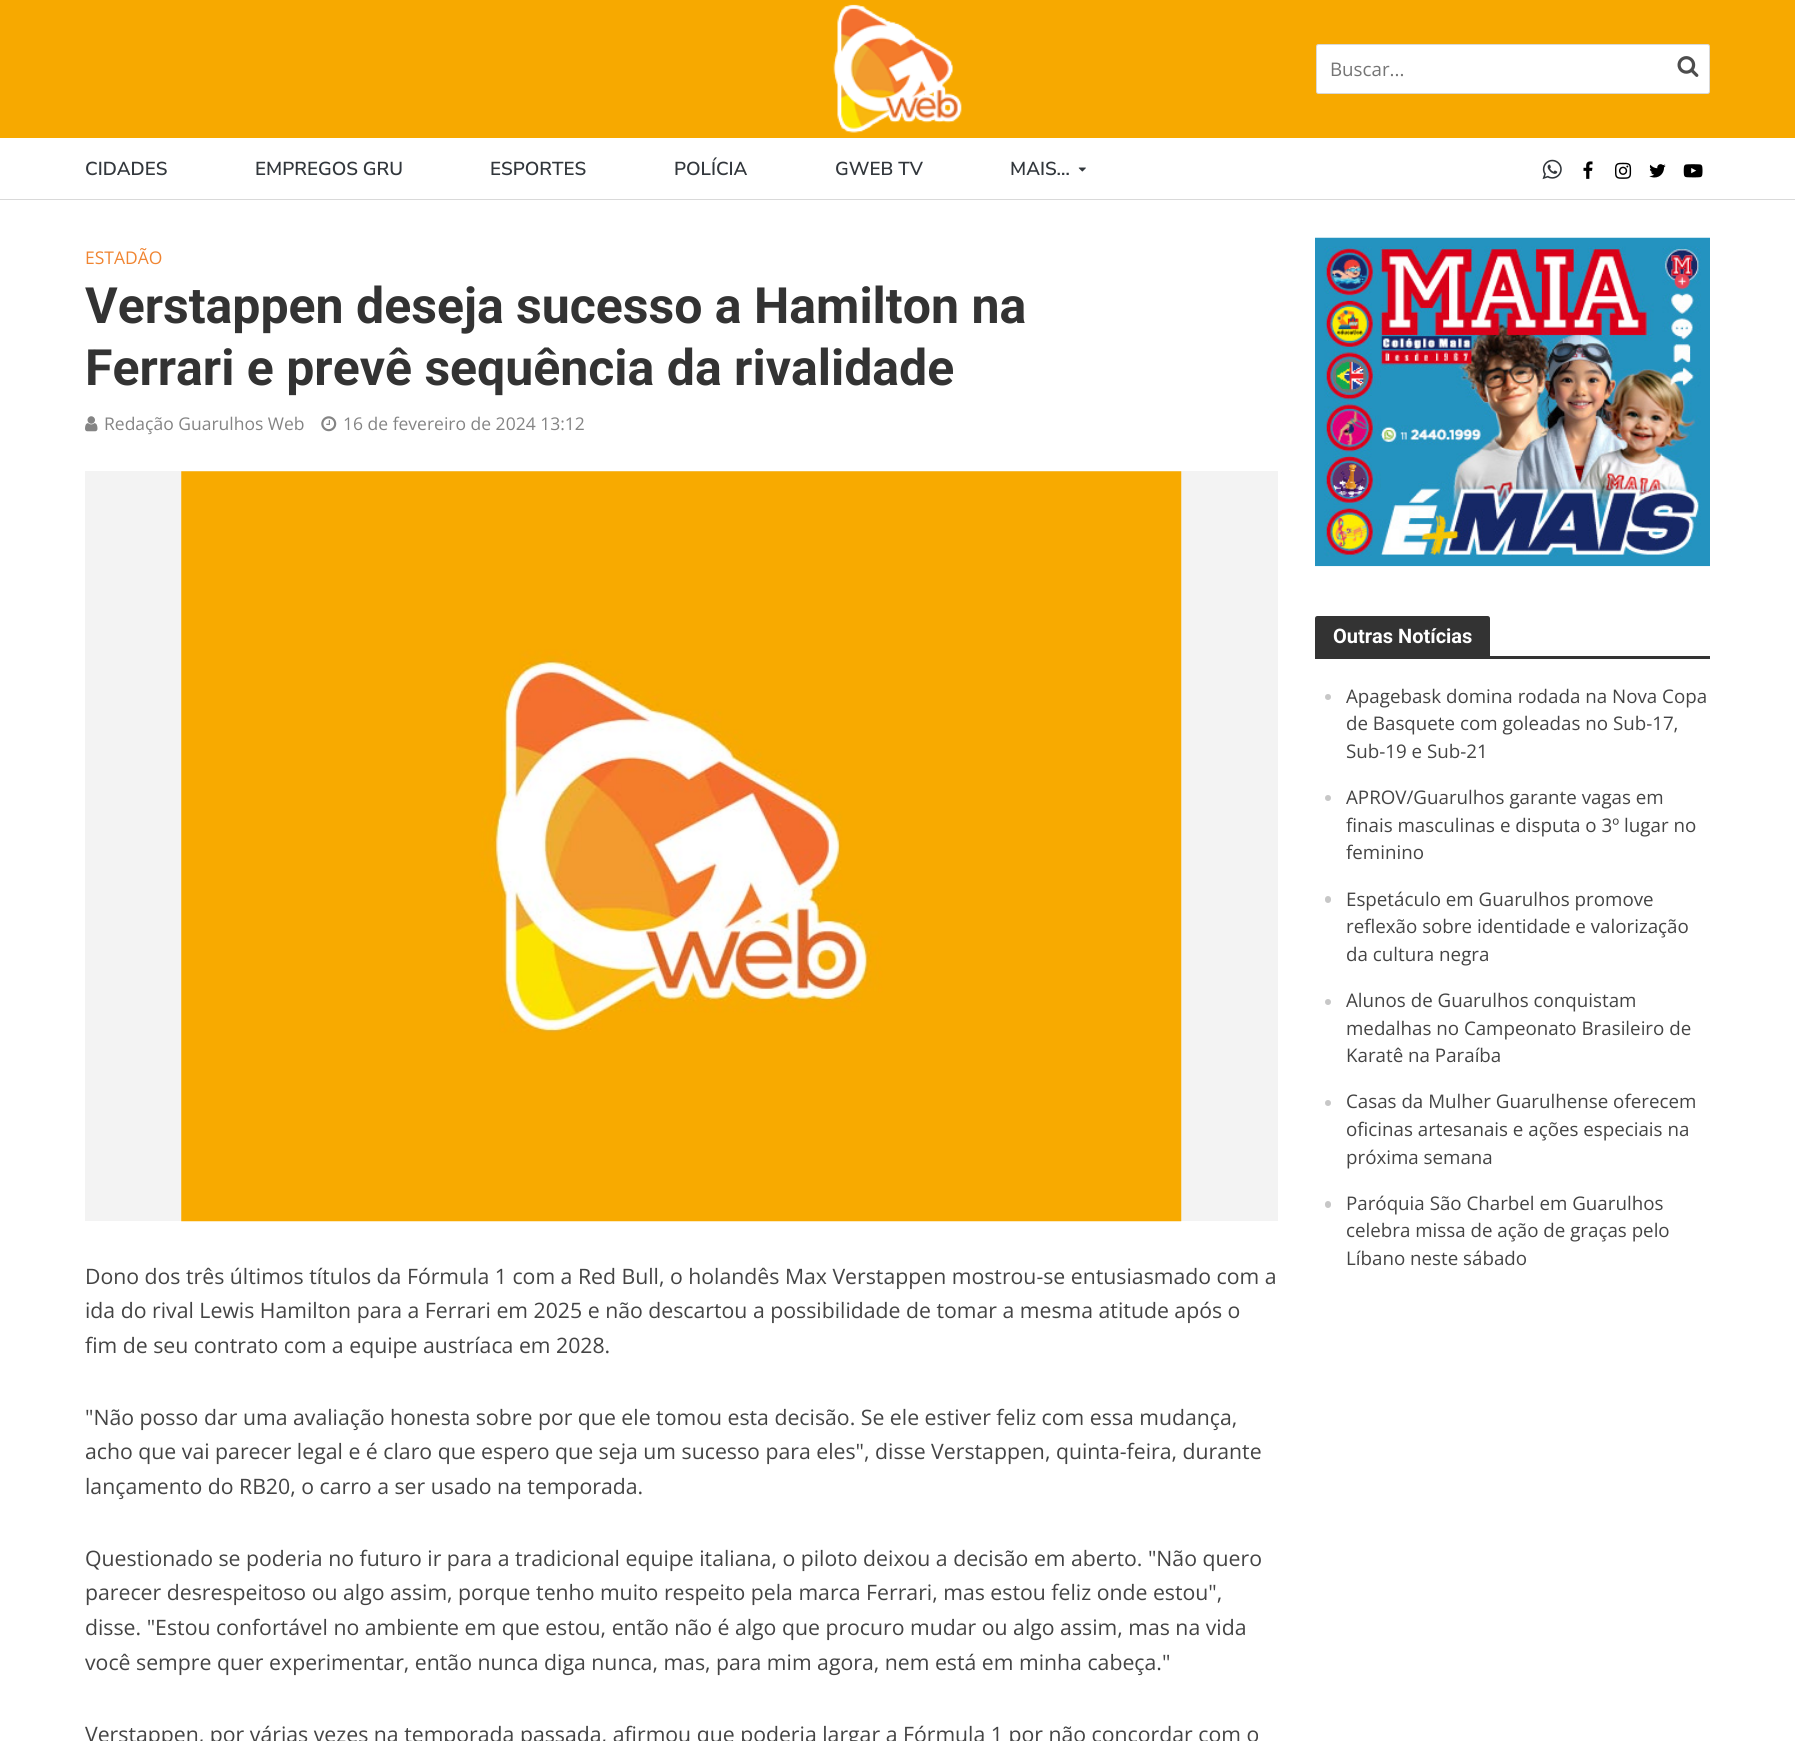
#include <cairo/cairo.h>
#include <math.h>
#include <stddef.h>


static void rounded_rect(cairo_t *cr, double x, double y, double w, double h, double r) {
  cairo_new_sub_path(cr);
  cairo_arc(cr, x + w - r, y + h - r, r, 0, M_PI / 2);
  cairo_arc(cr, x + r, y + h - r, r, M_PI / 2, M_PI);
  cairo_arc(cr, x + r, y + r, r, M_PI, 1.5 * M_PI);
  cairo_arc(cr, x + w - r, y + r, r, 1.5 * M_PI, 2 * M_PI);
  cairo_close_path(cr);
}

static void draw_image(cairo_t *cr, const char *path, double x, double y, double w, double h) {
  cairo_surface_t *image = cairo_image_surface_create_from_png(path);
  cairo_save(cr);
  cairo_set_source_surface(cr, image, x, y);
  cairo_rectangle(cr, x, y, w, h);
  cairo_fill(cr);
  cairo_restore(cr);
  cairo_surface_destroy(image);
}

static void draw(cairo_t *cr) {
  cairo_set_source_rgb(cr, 1, 1, 1);
  cairo_paint(cr);
  cairo_set_source_rgb(cr, 247 / 255.0, 169 / 255.0, 0);
  cairo_rectangle(cr, 0, 0, 1795, 138);
  cairo_fill(cr);
  draw_image(cr, "images/1.png", 833, 4, 129, 129);
  cairo_set_source_rgb(cr, 1, 1, 1);
  rounded_rect(cr, 1316, 44, 394, 50, 2.5);
  cairo_fill(cr);
  rounded_rect(cr, 1316.5, 44.5, 393, 49, 2);
  cairo_set_source_rgba(cr, 68 / 255.0, 68 / 255.0, 68 / 255.0, 0.2);
  cairo_set_line_width(cr, 1);
  cairo_stroke(cr);
  draw_image(cr, "images/2.png", 1677, 56, 22, 21);
  cairo_set_source_rgb(cr, 217 / 255.0, 217 / 255.0, 217 / 255.0);
  cairo_rectangle(cr, 0, 199, 1795, 1);
  cairo_fill(cr);
  draw_image(cr, "images/3.png", 1078, 167, 8, 5);
  draw_image(cr, "images/4.png", 1542, 159, 20, 21);
  draw_image(cr, "images/5.png", 1583, 161, 10, 18);
  draw_image(cr, "images/6.png", 1615, 162, 17, 17);
  draw_image(cr, "images/7.png", 1649, 164, 17, 14);
  draw_image(cr, "images/8.png", 1683, 164, 20, 14);
  draw_image(cr, "images/9.png", 85, 416, 13, 16);
  draw_image(cr, "images/10.png", 321, 416, 16, 16);
  cairo_set_source_rgb(cr, 243 / 255.0, 243 / 255.0, 243 / 255.0);
  cairo_rectangle(cr, 85, 471, 1193, 750);
  cairo_fill(cr);
  draw_image(cr, "images/11.png", 181, 471, 1001, 751);
  draw_image(cr, "images/12.png", 1315, 237, 395, 330);
  cairo_set_source_rgb(cr, 51 / 255.0, 51 / 255.0, 51 / 255.0);
  cairo_new_path(cr);
  cairo_move_to(cr, 1317.5, 616);
  cairo_line_to(cr, 1487.5, 616);
  cairo_curve_to(cr, 1489, 616, 1490, 617, 1490, 618.5);
  cairo_line_to(cr, 1490, 656);
  cairo_line_to(cr, 1315, 656);
  cairo_line_to(cr, 1315, 618.5);
  cairo_curve_to(cr, 1315, 617, 1316, 616, 1317.5, 616);
  cairo_close_path(cr);
  cairo_fill(cr);
  cairo_rectangle(cr, 1315, 656, 395, 3);
  cairo_fill(cr);
  cairo_set_source_rgb(cr, 199 / 255.0, 199 / 255.0, 199 / 255.0);
  cairo_arc(cr, 1328, 697, 3, 0, 2 * M_PI);
  cairo_fill(cr);
  cairo_arc(cr, 1328, 798, 3, 0, 2 * M_PI);
  cairo_fill(cr);
  rounded_rect(cr, 1325, 896, 6, 7, 3);
  cairo_fill(cr);
  cairo_arc(cr, 1328, 1002, 3, 0, 2 * M_PI);
  cairo_fill(cr);
  cairo_arc(cr, 1328, 1103, 3, 0, 2 * M_PI);
  cairo_fill(cr);
  rounded_rect(cr, 1325, 1201, 6, 7, 3);
  cairo_fill(cr);
  cairo_select_font_face(cr, "Open Sans", CAIRO_FONT_SLANT_NORMAL, CAIRO_FONT_WEIGHT_NORMAL);
  cairo_set_font_size(cr, 18.75);
  cairo_set_source_rgb(cr, 117 / 255.0, 117 / 255.0, 117 / 255.0);
  cairo_move_to(cr, 1330, 76);
  cairo_show_text(cr, "Buscar...");
  cairo_select_font_face(cr, "Nunito Sans SemiBold", CAIRO_FONT_SLANT_NORMAL, CAIRO_FONT_WEIGHT_NORMAL);
  cairo_set_source_rgb(cr, 50 / 255.0, 55 / 255.0, 60 / 255.0);
  cairo_move_to(cr, 85, 175);
  cairo_show_text(cr, "CIDADES");
  cairo_move_to(cr, 255, 175);
  cairo_show_text(cr, "EMPREGOS GRU");
  cairo_move_to(cr, 490, 175);
  cairo_show_text(cr, "ESPORTES");
  cairo_move_to(cr, 674, 175);
  cairo_show_text(cr, "POLÍCIA");
  cairo_move_to(cr, 835, 175);
  cairo_show_text(cr, "GWEB TV");
  cairo_move_to(cr, 1010, 175);
  cairo_show_text(cr, "MAIS…");
  cairo_select_font_face(cr, "Open Sans", CAIRO_FONT_SLANT_NORMAL, CAIRO_FONT_WEIGHT_NORMAL);
  cairo_set_font_size(cr, 17.5);
  cairo_set_source_rgb(cr, 240 / 255.0, 133 / 255.0, 50 / 255.0);
  cairo_move_to(cr, 85, 264);
  cairo_show_text(cr, "ESTADÃO");
  cairo_select_font_face(cr, "Roboto", CAIRO_FONT_SLANT_NORMAL, CAIRO_FONT_WEIGHT_BOLD);
  cairo_set_font_size(cr, 50);
  cairo_set_source_rgb(cr, 51 / 255.0, 51 / 255.0, 51 / 255.0);
  cairo_move_to(cr, 85, 323);
  cairo_show_text(cr, "Verstappen deseja sucesso a Hamilton na");
  cairo_move_to(cr, 85, 385);
  cairo_show_text(cr, "Ferrari e prevê sequência da rivalidade");
  cairo_select_font_face(cr, "Open Sans", CAIRO_FONT_SLANT_NORMAL, CAIRO_FONT_WEIGHT_NORMAL);
  cairo_set_font_size(cr, 17.5);
  cairo_set_source_rgb(cr, 132 / 255.0, 132 / 255.0, 132 / 255.0);
  cairo_move_to(cr, 104, 430);
  cairo_show_text(cr, "Redação Guarulhos Web");
  cairo_move_to(cr, 343, 430);
  cairo_show_text(cr, "16 de fevereiro de 2024 13:12");
  cairo_set_font_size(cr, 21.25);
  cairo_set_source_rgb(cr, 68 / 255.0, 68 / 255.0, 68 / 255.0);
  cairo_move_to(cr, 85, 1284);
  cairo_show_text(cr, "Dono dos três últimos títulos da Fórmula 1 com a Red Bull, o holandês Max Verstappen mostrou-se entusiasmado com a");
  cairo_move_to(cr, 85, 1318);
  cairo_show_text(cr, "ida do rival Lewis Hamilton para a Ferrari em 2025 e não descartou a possibilidade de tomar a mesma atitude após o");
  cairo_move_to(cr, 85, 1353);
  cairo_show_text(cr, "fim de seu contrato com a equipe austríaca em 2028.");
  cairo_move_to(cr, 85, 1425);
  cairo_show_text(cr, "\"Não posso dar uma avaliação honesta sobre por que ele tomou esta decisão. Se ele estiver feliz com essa mudança,");
  cairo_move_to(cr, 85, 1459);
  cairo_show_text(cr, "acho que vai parecer legal e é claro que espero que seja um sucesso para eles\", disse Verstappen, quinta-feira, durante");
  cairo_move_to(cr, 85, 1494);
  cairo_show_text(cr, "lançamento do RB20, o carro a ser usado na temporada.");
  cairo_move_to(cr, 85, 1566);
  cairo_show_text(cr, "Questionado se poderia no futuro ir para a tradicional equipe italiana, o piloto deixou a decisão em aberto. \"Não quero");
  cairo_move_to(cr, 85, 1600);
  cairo_show_text(cr, "parecer desrespeitoso ou algo assim, porque tenho muito respeito pela marca Ferrari, mas estou feliz onde estou\",");
  cairo_move_to(cr, 85, 1635);
  cairo_show_text(cr, "disse. \"Estou confortável no ambiente em que estou, então não é algo que procuro mudar ou algo assim, mas na vida");
  cairo_move_to(cr, 85, 1670);
  cairo_show_text(cr, "você sempre quer experimentar, então nunca diga nunca, mas, para mim agora, nem está em minha cabeça.\"");
  cairo_move_to(cr, 85, 1742);
  cairo_show_text(cr, "Verstappen, por várias vezes na temporada passada, afirmou que poderia largar a Fórmula 1 por não concordar com o");
  cairo_select_font_face(cr, "Roboto", CAIRO_FONT_SLANT_NORMAL, CAIRO_FONT_WEIGHT_BOLD);
  cairo_set_font_size(cr, 20);
  cairo_set_source_rgb(cr, 1, 1, 1);
  cairo_move_to(cr, 1333, 643);
  cairo_show_text(cr, "Outras Notícias");
  cairo_select_font_face(cr, "Open Sans", CAIRO_FONT_SLANT_NORMAL, CAIRO_FONT_WEIGHT_NORMAL);
  cairo_set_font_size(cr, 18.75);
  cairo_set_source_rgb(cr, 68 / 255.0, 68 / 255.0, 68 / 255.0);
  cairo_move_to(cr, 1346, 703);
  cairo_show_text(cr, "Apagebask domina rodada na Nova Copa");
  cairo_move_to(cr, 1346, 730);
  cairo_show_text(cr, "de Basquete com goleadas no Sub-17,");
  cairo_move_to(cr, 1346, 758);
  cairo_show_text(cr, "Sub-19 e Sub-21");
  cairo_move_to(cr, 1346, 804);
  cairo_show_text(cr, "APROV/Guarulhos garante vagas em");
  cairo_move_to(cr, 1346, 832);
  cairo_show_text(cr, "finais masculinas e disputa o 3º lugar no");
  cairo_move_to(cr, 1346, 859);
  cairo_show_text(cr, "feminino");
  cairo_move_to(cr, 1346, 906);
  cairo_show_text(cr, "Espetáculo em Guarulhos promove");
  cairo_move_to(cr, 1346, 933);
  cairo_show_text(cr, "reflexão sobre identidade e valorização");
  cairo_move_to(cr, 1346, 961);
  cairo_show_text(cr, "da cultura negra");
  cairo_move_to(cr, 1346, 1007);
  cairo_show_text(cr, "Alunos de Guarulhos conquistam");
  cairo_move_to(cr, 1346, 1035);
  cairo_show_text(cr, "medalhas no Campeonato Brasileiro de");
  cairo_move_to(cr, 1346, 1062);
  cairo_show_text(cr, "Karatê na Paraíba");
  cairo_move_to(cr, 1346, 1108);
  cairo_show_text(cr, "Casas da Mulher Guarulhense oferecem");
  cairo_move_to(cr, 1346, 1136);
  cairo_show_text(cr, "oficinas artesanais e ações especiais na");
  cairo_move_to(cr, 1346, 1164);
  cairo_show_text(cr, "próxima semana");
  cairo_move_to(cr, 1346, 1210);
  cairo_show_text(cr, "Paróquia São Charbel em Guarulhos");
  cairo_move_to(cr, 1346, 1237);
  cairo_show_text(cr, "celebra missa de ação de graças pelo");
  cairo_move_to(cr, 1346, 1265);
  cairo_show_text(cr, "Líbano neste sábado");
}

int main(void) {
  cairo_surface_t *surface = cairo_image_surface_create(CAIRO_FORMAT_RGB24, 1795, 1741);
  cairo_t *cr = cairo_create(surface);
  cairo_font_options_t *options = cairo_font_options_create();
  cairo_font_options_set_hint_metrics(options, CAIRO_HINT_METRICS_OFF);
  cairo_font_options_set_hint_style(options, CAIRO_HINT_STYLE_NONE);
  cairo_set_font_options(cr, options);
  cairo_set_miter_limit(cr, 4);
  draw(cr);
  cairo_surface_write_to_png(surface, "out.png");
  cairo_font_options_destroy(options);
  cairo_destroy(cr);
  cairo_surface_destroy(surface);
  return 0;
}
